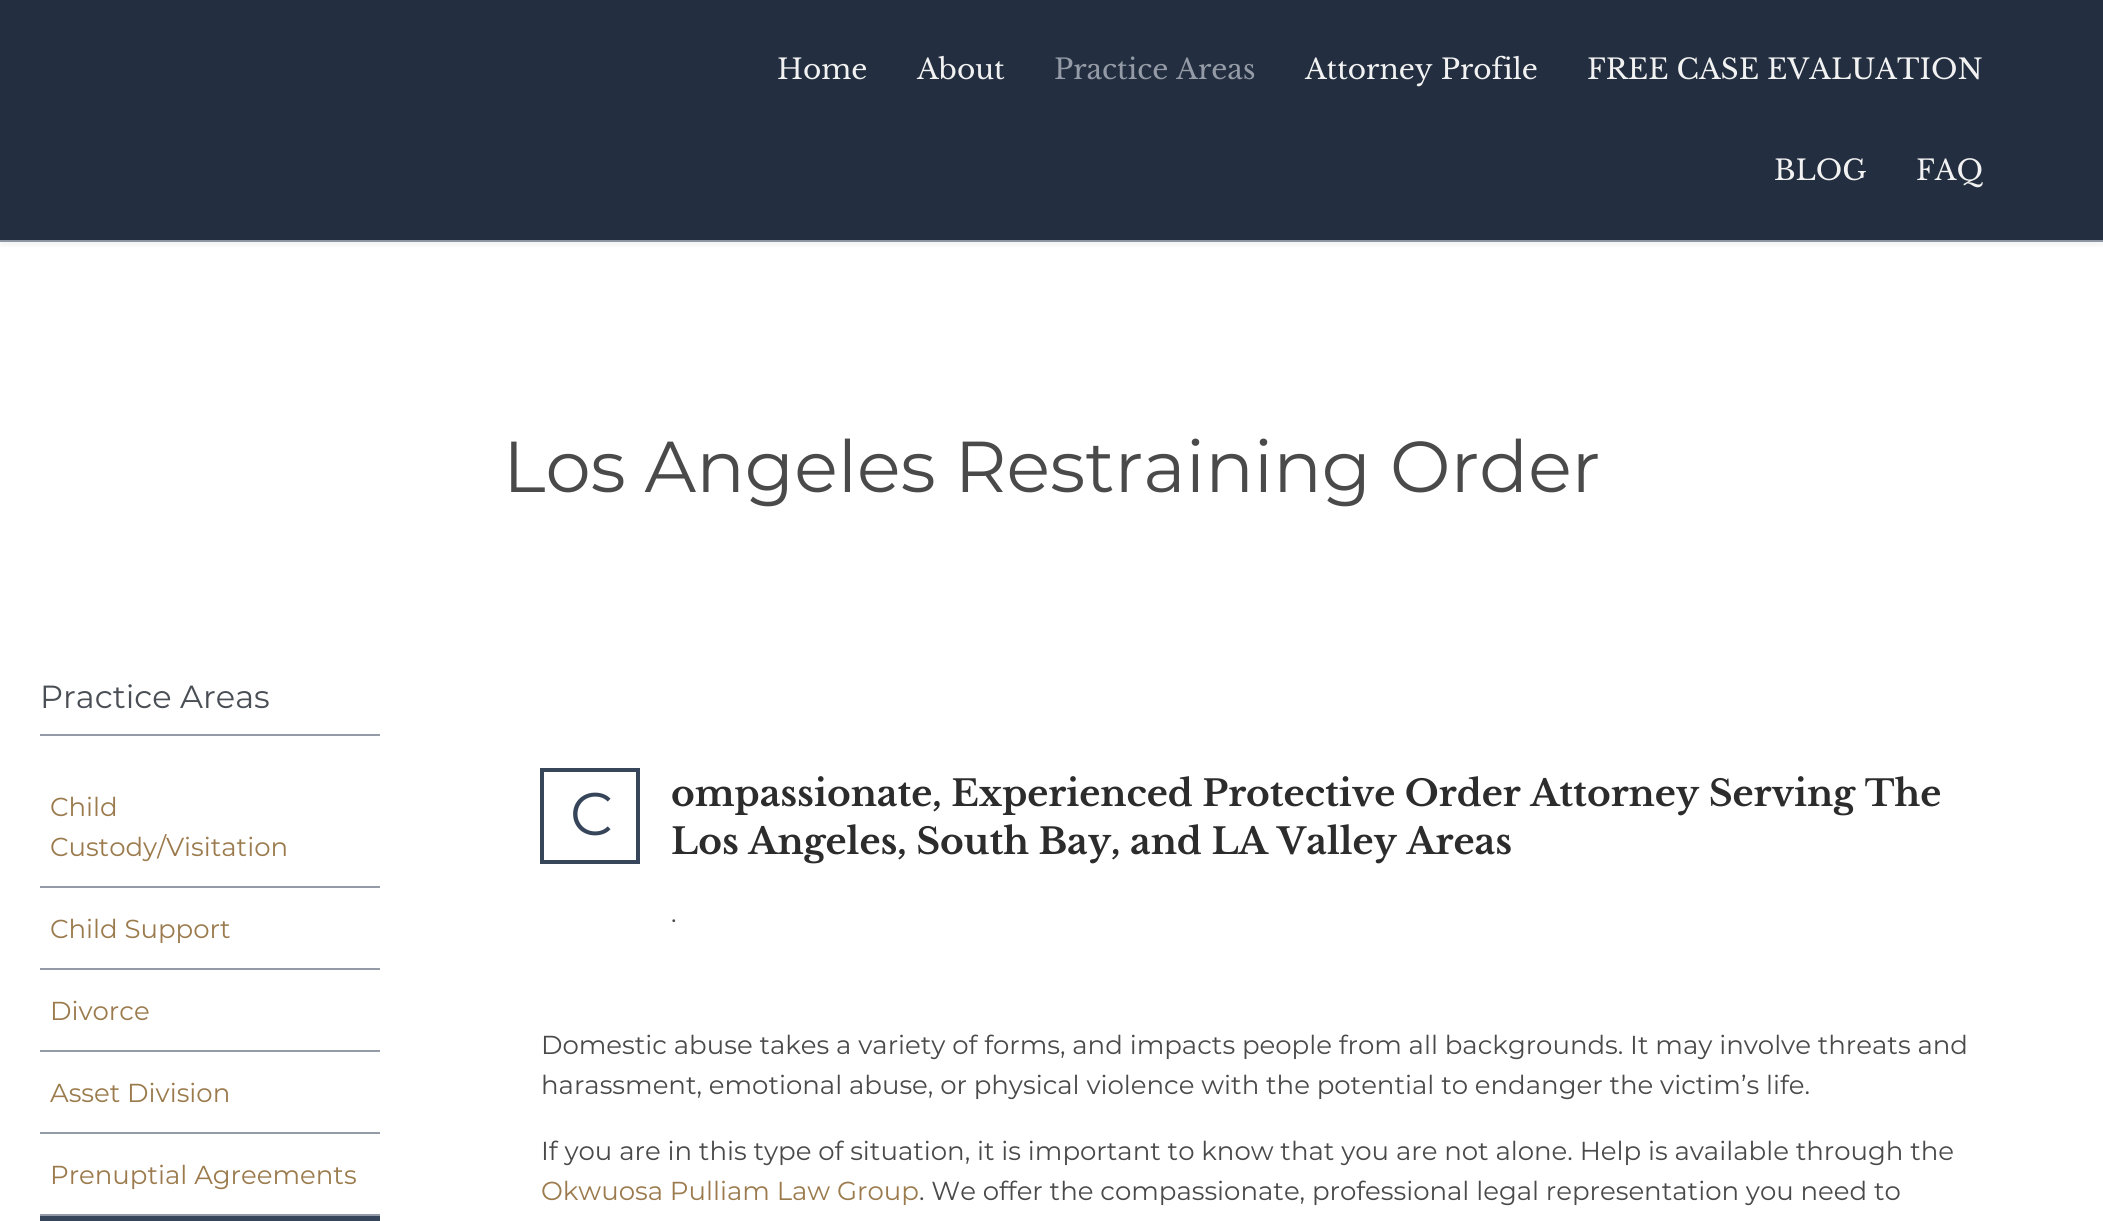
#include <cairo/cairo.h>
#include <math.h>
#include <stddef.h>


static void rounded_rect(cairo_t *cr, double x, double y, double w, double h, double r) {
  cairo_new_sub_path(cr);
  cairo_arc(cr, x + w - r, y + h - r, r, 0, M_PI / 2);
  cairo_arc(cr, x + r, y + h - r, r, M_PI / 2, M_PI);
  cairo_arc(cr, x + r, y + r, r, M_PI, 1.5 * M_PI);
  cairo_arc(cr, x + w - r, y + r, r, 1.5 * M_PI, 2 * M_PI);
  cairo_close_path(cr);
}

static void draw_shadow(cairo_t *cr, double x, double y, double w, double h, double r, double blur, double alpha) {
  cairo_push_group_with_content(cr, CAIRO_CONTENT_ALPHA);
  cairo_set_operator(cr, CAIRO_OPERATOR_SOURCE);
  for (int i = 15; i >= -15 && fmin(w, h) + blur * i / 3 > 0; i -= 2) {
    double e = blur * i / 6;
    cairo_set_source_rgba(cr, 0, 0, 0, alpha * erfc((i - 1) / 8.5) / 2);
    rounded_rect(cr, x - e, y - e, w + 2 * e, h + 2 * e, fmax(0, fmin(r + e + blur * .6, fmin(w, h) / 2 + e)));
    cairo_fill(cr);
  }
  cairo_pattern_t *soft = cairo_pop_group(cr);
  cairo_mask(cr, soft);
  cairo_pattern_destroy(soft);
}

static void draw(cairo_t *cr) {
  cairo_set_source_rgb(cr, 1, 1, 1);
  cairo_paint(cr);
  cairo_set_source_rgb(cr, 0, 0, 0);
  draw_shadow(cr, 0, 4, 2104, 242, 0, 2, 0.04);
  cairo_set_source_rgb(cr, 35 / 255.0, 47 / 255.0, 64 / 255.0);
  cairo_rectangle(cr, 0, 0, 2103, 240);
  cairo_fill(cr);
  cairo_set_source_rgb(cr, 142 / 255.0, 150 / 255.0, 161 / 255.0);
  cairo_rectangle(cr, 0, 240, 2103, 2);
  cairo_fill(cr);
  cairo_set_source_rgb(cr, 148 / 255.0, 155 / 255.0, 166 / 255.0);
  cairo_rectangle(cr, 40, 734, 340, 2);
  cairo_fill(cr);
  cairo_rectangle(cr, 40, 886, 340, 2);
  cairo_fill(cr);
  cairo_rectangle(cr, 40, 968, 340, 2);
  cairo_fill(cr);
  cairo_rectangle(cr, 40, 1050, 340, 2);
  cairo_fill(cr);
  cairo_rectangle(cr, 40, 1132, 340, 2);
  cairo_fill(cr);
  cairo_rectangle(cr, 40, 1214, 340, 2);
  cairo_fill(cr);
  cairo_set_source_rgb(cr, 54 / 255.0, 69 / 255.0, 89 / 255.0);
  cairo_rectangle(cr, 40, 1216, 340, 5);
  cairo_fill(cr);
  cairo_rectangle(cr, 542, 770, 96, 92);
  cairo_set_line_width(cr, 4);
  cairo_stroke(cr);
  cairo_select_font_face(cr, "Libre Baskerville", CAIRO_FONT_SLANT_NORMAL, CAIRO_FONT_WEIGHT_NORMAL);
  cairo_set_font_size(cr, 28);
  cairo_set_source_rgb(cr, 242 / 255.0, 242 / 255.0, 242 / 255.0);
  cairo_move_to(cr, 777, 79);
  cairo_show_text(cr, "Home");
  cairo_move_to(cr, 917, 79);
  cairo_show_text(cr, "About");
  cairo_set_source_rgb(cr, 148 / 255.0, 155 / 255.0, 166 / 255.0);
  cairo_move_to(cr, 1054, 79);
  cairo_show_text(cr, "Practice Areas");
  cairo_set_source_rgb(cr, 242 / 255.0, 242 / 255.0, 242 / 255.0);
  cairo_move_to(cr, 1305, 79);
  cairo_show_text(cr, "Attorney Profile");
  cairo_move_to(cr, 1587, 79);
  cairo_show_text(cr, "FREE CASE EVALUATION");
  cairo_move_to(cr, 1774, 180);
  cairo_show_text(cr, "BLOG");
  cairo_move_to(cr, 1916, 180);
  cairo_show_text(cr, "FAQ");
  cairo_select_font_face(cr, "Montserrat", CAIRO_FONT_SLANT_NORMAL, CAIRO_FONT_WEIGHT_NORMAL);
  cairo_set_font_size(cr, 72);
  cairo_set_source_rgb(cr, 74 / 255.0, 74 / 255.0, 74 / 255.0);
  cairo_move_to(cr, 503, 492);
  cairo_show_text(cr, "Los Angeles Restraining Order");
  cairo_set_font_size(cr, 32);
  cairo_set_source_rgb(cr, 74 / 255.0, 79 / 255.0, 85 / 255.0);
  cairo_move_to(cr, 40, 708);
  cairo_show_text(cr, "Practice Areas");
  cairo_set_font_size(cr, 26);
  cairo_set_source_rgb(cr, 155 / 255.0, 123 / 255.0, 77 / 255.0);
  cairo_move_to(cr, 50, 816);
  cairo_show_text(cr, "Child");
  cairo_move_to(cr, 50, 856);
  cairo_show_text(cr, "Custody/Visitation");
  cairo_move_to(cr, 50, 938);
  cairo_show_text(cr, "Child Support");
  cairo_move_to(cr, 50, 1020);
  cairo_show_text(cr, "Divorce");
  cairo_move_to(cr, 50, 1102);
  cairo_show_text(cr, "Asset Division");
  cairo_move_to(cr, 50, 1184);
  cairo_show_text(cr, "Prenuptial Agreements");
  cairo_set_font_size(cr, 60);
  cairo_set_source_rgb(cr, 54 / 255.0, 69 / 255.0, 89 / 255.0);
  cairo_move_to(cr, 570, 835);
  cairo_show_text(cr, "C");
  cairo_select_font_face(cr, "Libre Baskerville", CAIRO_FONT_SLANT_NORMAL, CAIRO_FONT_WEIGHT_BOLD);
  cairo_set_font_size(cr, 36);
  cairo_set_source_rgb(cr, 44 / 255.0, 44 / 255.0, 44 / 255.0);
  cairo_move_to(cr, 671, 806);
  cairo_show_text(cr, "ompassionate, Experienced Protective Order Attorney Serving The");
  cairo_move_to(cr, 671, 854);
  cairo_show_text(cr, "Los Angeles, South Bay, and LA Valley Areas");
  cairo_select_font_face(cr, "Montserrat", CAIRO_FONT_SLANT_NORMAL, CAIRO_FONT_WEIGHT_NORMAL);
  cairo_set_font_size(cr, 26);
  cairo_set_source_rgb(cr, 74 / 255.0, 74 / 255.0, 74 / 255.0);
  cairo_move_to(cr, 671, 922);
  cairo_show_text(cr, ".");
  cairo_move_to(cr, 541, 1054);
  cairo_show_text(cr, "Domestic abuse takes a variety of forms, and impacts people from all backgrounds. It may involve threats and");
  cairo_move_to(cr, 541, 1094);
  cairo_show_text(cr, "harassment, emotional abuse, or physical violence with the potential to endanger the victim’s life.");
  cairo_move_to(cr, 541, 1160);
  cairo_show_text(cr, "If you are in this type of situation, it is important to know that you are not alone. Help is available through the");
  cairo_set_source_rgb(cr, 155 / 255.0, 123 / 255.0, 77 / 255.0);
  cairo_move_to(cr, 541, 1200);
  cairo_show_text(cr, "Okwuosa Pulliam Law Group");
  cairo_set_source_rgb(cr, 74 / 255.0, 74 / 255.0, 74 / 255.0);
  cairo_move_to(cr, 919, 1200);
  cairo_show_text(cr, ". We offer the compassionate, professional legal representation you need to");
}

int main(void) {
  cairo_surface_t *surface = cairo_image_surface_create(CAIRO_FORMAT_RGB24, 2103, 1221);
  cairo_t *cr = cairo_create(surface);
  cairo_font_options_t *options = cairo_font_options_create();
  cairo_font_options_set_hint_metrics(options, CAIRO_HINT_METRICS_OFF);
  cairo_font_options_set_hint_style(options, CAIRO_HINT_STYLE_NONE);
  cairo_set_font_options(cr, options);
  cairo_set_miter_limit(cr, 4);
  draw(cr);
  cairo_surface_write_to_png(surface, "out.png");
  cairo_font_options_destroy(options);
  cairo_destroy(cr);
  cairo_surface_destroy(surface);
  return 0;
}
